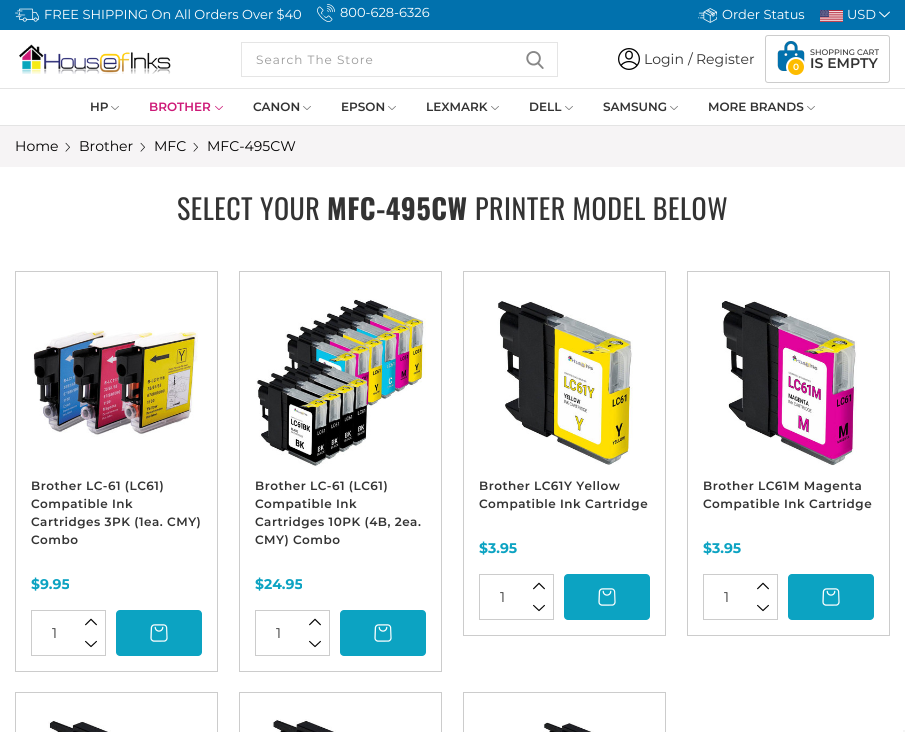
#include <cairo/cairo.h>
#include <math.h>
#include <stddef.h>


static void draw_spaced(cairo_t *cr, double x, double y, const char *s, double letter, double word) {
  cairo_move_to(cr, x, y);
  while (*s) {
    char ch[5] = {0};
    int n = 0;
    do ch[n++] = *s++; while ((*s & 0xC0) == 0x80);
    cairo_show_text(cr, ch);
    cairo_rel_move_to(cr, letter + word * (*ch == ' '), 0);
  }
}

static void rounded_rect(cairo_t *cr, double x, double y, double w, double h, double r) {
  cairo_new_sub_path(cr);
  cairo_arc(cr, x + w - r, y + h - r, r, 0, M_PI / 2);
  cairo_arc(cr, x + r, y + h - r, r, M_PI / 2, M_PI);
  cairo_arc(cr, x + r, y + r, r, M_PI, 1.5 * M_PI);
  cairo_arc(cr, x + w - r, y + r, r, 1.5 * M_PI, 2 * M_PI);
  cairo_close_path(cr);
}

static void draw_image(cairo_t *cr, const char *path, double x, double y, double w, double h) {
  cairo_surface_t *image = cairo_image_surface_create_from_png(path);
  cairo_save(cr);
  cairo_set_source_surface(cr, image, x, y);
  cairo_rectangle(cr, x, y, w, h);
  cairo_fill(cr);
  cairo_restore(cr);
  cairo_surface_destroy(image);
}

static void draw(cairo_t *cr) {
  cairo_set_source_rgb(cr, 1, 1, 1);
  cairo_paint(cr);
  cairo_set_source_rgb(cr, 1 / 255.0, 113 / 255.0, 173 / 255.0);
  cairo_rectangle(cr, 0, 0, 905, 30);
  cairo_fill(cr);
  draw_image(cr, "images/1.png", 15, 8, 24, 14);
  draw_image(cr, "images/2.png", 317, 4, 18, 18);
  draw_image(cr, "images/3.png", 698, 8, 19, 15);
  draw_image(cr, "images/4.png", 820, 10, 23, 12);
  draw_image(cr, "images/5.png", 879, 11, 11, 7);
  draw_image(cr, "images/6.png", 19, 44, 152, 30);
  cairo_rectangle(cr, 241.5, 42.5, 316, 34);
  cairo_set_source_rgb(cr, 229 / 255.0, 229 / 255.0, 229 / 255.0);
  cairo_set_line_width(cr, 1);
  cairo_stroke(cr);
  draw_image(cr, "images/7.png", 526, 51, 18, 18);
  draw_image(cr, "images/8.png", 618, 48, 22, 22);
  rounded_rect(cr, 765.5, 35.5, 124, 47, 2.5);
  cairo_set_source_rgb(cr, 204 / 255.0, 204 / 255.0, 204 / 255.0);
  cairo_stroke(cr);
  draw_image(cr, "images/9.png", 777, 41, 28, 30);
  cairo_set_source_rgb(cr, 253 / 255.0, 188 / 255.0, 0);
  cairo_arc(cr, 796, 67, 9, 0, 2 * M_PI);
  cairo_fill_preserve(cr);
  cairo_set_source_rgb(cr, 1, 1, 1);
  cairo_set_line_width(cr, 2);
  cairo_stroke(cr);
  cairo_set_source_rgb(cr, 228 / 255.0, 228 / 255.0, 228 / 255.0);
  cairo_rectangle(cr, 0, 88, 905, 1);
  cairo_fill(cr);
  cairo_rectangle(cr, 0, 125, 905, 1);
  cairo_fill(cr);
  draw_image(cr, "images/10.png", 111, 106, 8, 4);
  draw_image(cr, "images/11.png", 215, 105, 8, 5);
  draw_image(cr, "images/10.png", 303, 106, 8, 4);
  draw_image(cr, "images/10.png", 388, 106, 8, 4);
  draw_image(cr, "images/10.png", 491, 106, 8, 4);
  draw_image(cr, "images/10.png", 565, 106, 8, 4);
  draw_image(cr, "images/10.png", 670, 106, 8, 4);
  draw_image(cr, "images/10.png", 807, 106, 8, 4);
  cairo_set_source_rgb(cr, 246 / 255.0, 244 / 255.0, 245 / 255.0);
  cairo_rectangle(cr, 0, 126, 905, 41);
  cairo_fill(cr);
  draw_image(cr, "images/12.png", 65, 142, 5, 10);
  draw_image(cr, "images/12.png", 140, 142, 5, 10);
  draw_image(cr, "images/12.png", 193, 142, 5, 10);
  cairo_rectangle(cr, 15.5, 271.5, 202, 400);
  cairo_set_source_rgb(cr, 204 / 255.0, 204 / 255.0, 204 / 255.0);
  cairo_set_line_width(cr, 1);
  cairo_stroke(cr);
  draw_image(cr, "images/13.png", 32, 330, 166, 107);
  cairo_rectangle(cr, 31.5, 610.5, 74, 45);
  cairo_stroke(cr);
  draw_image(cr, "images/14.png", 85, 618, 12, 8);
  draw_image(cr, "images/15.png", 85, 640, 12, 8);
  cairo_set_source_rgb(cr, 12 / 255.0, 163 / 255.0, 194 / 255.0);
  rounded_rect(cr, 116, 610, 86, 46, 4);
  cairo_fill(cr);
  draw_image(cr, "images/16.png", 150, 624, 18, 18);
  cairo_rectangle(cr, 239.5, 271.5, 202, 400);
  cairo_set_source_rgb(cr, 204 / 255.0, 204 / 255.0, 204 / 255.0);
  cairo_stroke(cr);
  draw_image(cr, "images/17.png", 256, 299, 170, 168);
  cairo_rectangle(cr, 255.5, 610.5, 74, 45);
  cairo_stroke(cr);
  draw_image(cr, "images/14.png", 309, 618, 12, 8);
  draw_image(cr, "images/15.png", 309, 640, 12, 8);
  cairo_set_source_rgb(cr, 12 / 255.0, 163 / 255.0, 194 / 255.0);
  rounded_rect(cr, 340, 610, 86, 46, 4);
  cairo_fill(cr);
  draw_image(cr, "images/16.png", 374, 624, 18, 18);
  cairo_rectangle(cr, 463.5, 271.5, 202, 364);
  cairo_set_source_rgb(cr, 204 / 255.0, 204 / 255.0, 204 / 255.0);
  cairo_stroke(cr);
  draw_image(cr, "images/18.png", 497, 301, 136, 164);
  cairo_rectangle(cr, 479.5, 574.5, 74, 45);
  cairo_stroke(cr);
  draw_image(cr, "images/14.png", 533, 582, 12, 8);
  draw_image(cr, "images/15.png", 533, 604, 12, 8);
  cairo_set_source_rgb(cr, 12 / 255.0, 163 / 255.0, 194 / 255.0);
  rounded_rect(cr, 564, 574, 86, 46, 4);
  cairo_fill(cr);
  draw_image(cr, "images/16.png", 598, 588, 18, 18);
  cairo_rectangle(cr, 687.5, 271.5, 202, 364);
  cairo_set_source_rgb(cr, 204 / 255.0, 204 / 255.0, 204 / 255.0);
  cairo_stroke(cr);
  draw_image(cr, "images/19.png", 720, 300, 137, 166);
  cairo_rectangle(cr, 703.5, 574.5, 74, 45);
  cairo_stroke(cr);
  draw_image(cr, "images/14.png", 757, 582, 12, 8);
  draw_image(cr, "images/15.png", 757, 604, 12, 8);
  cairo_set_source_rgb(cr, 12 / 255.0, 163 / 255.0, 194 / 255.0);
  rounded_rect(cr, 788, 574, 86, 46, 4);
  cairo_fill(cr);
  draw_image(cr, "images/16.png", 822, 588, 18, 18);
  cairo_rectangle(cr, 15.5, 692.5, 202, 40);
  cairo_set_source_rgb(cr, 204 / 255.0, 204 / 255.0, 204 / 255.0);
  cairo_stroke(cr);
  draw_image(cr, "images/20.png", 48, 720, 63, 12);
  cairo_rectangle(cr, 239.5, 692.5, 202, 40);
  cairo_stroke(cr);
  draw_image(cr, "images/21.png", 272, 719, 64, 13);
  cairo_rectangle(cr, 463.5, 692.5, 202, 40);
  cairo_stroke(cr);
  draw_image(cr, "images/22.png", 543, 722, 51, 10);
  cairo_set_source_rgb(cr, 245 / 255.0, 245 / 255.0, 245 / 255.0);
  cairo_rectangle(cr, 903, 730, 2, 2);
  cairo_fill(cr);
  cairo_select_font_face(cr, "Montserrat", CAIRO_FONT_SLANT_NORMAL, CAIRO_FONT_WEIGHT_NORMAL);
  cairo_set_font_size(cr, 13);
  cairo_set_source_rgb(cr, 1, 1, 1);
  cairo_move_to(cr, 44, 19);
  cairo_show_text(cr, "FREE SHIPPING On All Orders Over $40");
  cairo_move_to(cr, 340, 17);
  cairo_show_text(cr, "800-628-6326");
  cairo_move_to(cr, 722, 19);
  cairo_show_text(cr, "Order Status");
  cairo_move_to(cr, 847, 19);
  cairo_show_text(cr, "USD");
  cairo_set_font_size(cr, 12);
  cairo_set_source_rgb(cr, 153 / 255.0, 153 / 255.0, 153 / 255.0);
  draw_spaced(cr, 256, 64, "Search The Store", 1, 0);
  cairo_set_font_size(cr, 14);
  cairo_set_source_rgb(cr, 51 / 255.0, 51 / 255.0, 51 / 255.0);
  cairo_move_to(cr, 644, 64);
  cairo_show_text(cr, "Login");
  cairo_move_to(cr, 688, 64);
  cairo_show_text(cr, "/");
  cairo_move_to(cr, 696, 64);
  cairo_show_text(cr, "Register");
  cairo_select_font_face(cr, "Montserrat SemiBold", CAIRO_FONT_SLANT_NORMAL, CAIRO_FONT_WEIGHT_NORMAL);
  cairo_set_font_size(cr, 9);
  cairo_set_source_rgb(cr, 1, 1, 1);
  cairo_move_to(cr, 793, 70);
  cairo_show_text(cr, "0");
  cairo_select_font_face(cr, "Montserrat Medium", CAIRO_FONT_SLANT_NORMAL, CAIRO_FONT_WEIGHT_NORMAL);
  cairo_set_font_size(cr, 8);
  cairo_set_source_rgb(cr, 51 / 255.0, 51 / 255.0, 51 / 255.0);
  cairo_move_to(cr, 810, 55);
  cairo_show_text(cr, "SHOPPING CART");
  cairo_select_font_face(cr, "Montserrat SemiBold", CAIRO_FONT_SLANT_NORMAL, CAIRO_FONT_WEIGHT_NORMAL);
  cairo_set_font_size(cr, 14);
  cairo_move_to(cr, 810, 68);
  cairo_show_text(cr, "IS EMPTY");
  cairo_set_font_size(cr, 12);
  cairo_move_to(cr, 90, 111);
  cairo_show_text(cr, "HP");
  cairo_set_source_rgb(cr, 205 / 255.0, 25 / 255.0, 119 / 255.0);
  cairo_move_to(cr, 149, 111);
  cairo_show_text(cr, "BROTHER");
  cairo_set_source_rgb(cr, 51 / 255.0, 51 / 255.0, 51 / 255.0);
  cairo_move_to(cr, 253, 111);
  cairo_show_text(cr, "CANON");
  cairo_move_to(cr, 341, 111);
  cairo_show_text(cr, "EPSON");
  cairo_move_to(cr, 426, 111);
  cairo_show_text(cr, "LEXMARK");
  cairo_move_to(cr, 529, 111);
  cairo_show_text(cr, "DELL");
  cairo_move_to(cr, 603, 111);
  cairo_show_text(cr, "SAMSUNG");
  cairo_move_to(cr, 708, 111);
  cairo_show_text(cr, "MORE BRANDS");
  cairo_select_font_face(cr, "Montserrat", CAIRO_FONT_SLANT_NORMAL, CAIRO_FONT_WEIGHT_NORMAL);
  cairo_set_font_size(cr, 14);
  cairo_set_source_rgb(cr, 0, 0, 0);
  cairo_move_to(cr, 15, 151);
  cairo_show_text(cr, "Home");
  cairo_move_to(cr, 79, 151);
  cairo_show_text(cr, "Brother");
  cairo_move_to(cr, 154, 151);
  cairo_show_text(cr, "MFC");
  cairo_move_to(cr, 207, 151);
  cairo_show_text(cr, "MFC-495CW");
  cairo_select_font_face(cr, "Oswald", CAIRO_FONT_SLANT_NORMAL, CAIRO_FONT_WEIGHT_NORMAL);
  cairo_set_font_size(cr, 28);
  cairo_set_source_rgb(cr, 51 / 255.0, 51 / 255.0, 51 / 255.0);
  draw_spaced(cr, 177, 220, "SELECT YOUR", 0.5, 0);
  cairo_select_font_face(cr, "Oswald", CAIRO_FONT_SLANT_NORMAL, CAIRO_FONT_WEIGHT_BOLD);
  draw_spaced(cr, 327, 220, "MFC-495CW", 0.5, 0);
  cairo_select_font_face(cr, "Oswald", CAIRO_FONT_SLANT_NORMAL, CAIRO_FONT_WEIGHT_NORMAL);
  draw_spaced(cr, 475, 220, "PRINTER MODEL BELOW", 0.5, 0);
  cairo_select_font_face(cr, "Montserrat SemiBold", CAIRO_FONT_SLANT_NORMAL, CAIRO_FONT_WEIGHT_NORMAL);
  cairo_set_font_size(cr, 12);
  draw_spaced(cr, 31, 490, "Brother LC-61 (LC61)", 0.5, 0);
  draw_spaced(cr, 31, 508, "Compatible Ink", 0.5, 0);
  draw_spaced(cr, 31, 526, "Cartridges 3PK (1ea. CMY)", 0.5, 0);
  draw_spaced(cr, 31, 544, "Combo", 0.5, 0);
  cairo_select_font_face(cr, "Montserrat", CAIRO_FONT_SLANT_NORMAL, CAIRO_FONT_WEIGHT_BOLD);
  cairo_set_font_size(cr, 14);
  cairo_set_source_rgb(cr, 12 / 255.0, 163 / 255.0, 194 / 255.0);
  cairo_move_to(cr, 31, 589);
  cairo_show_text(cr, "$9.95");
  cairo_select_font_face(cr, "Montserrat", CAIRO_FONT_SLANT_NORMAL, CAIRO_FONT_WEIGHT_NORMAL);
  cairo_set_source_rgb(cr, 51 / 255.0, 51 / 255.0, 51 / 255.0);
  cairo_move_to(cr, 52, 638);
  cairo_show_text(cr, "1");
  cairo_select_font_face(cr, "Montserrat SemiBold", CAIRO_FONT_SLANT_NORMAL, CAIRO_FONT_WEIGHT_NORMAL);
  cairo_set_font_size(cr, 12);
  draw_spaced(cr, 255, 490, "Brother LC-61 (LC61)", 0.5, 0);
  draw_spaced(cr, 255, 508, "Compatible Ink", 0.5, 0);
  draw_spaced(cr, 255, 526, "Cartridges 10PK (4B, 2ea.", 0.5, 0);
  draw_spaced(cr, 255, 544, "CMY) Combo", 0.5, 0);
  cairo_select_font_face(cr, "Montserrat", CAIRO_FONT_SLANT_NORMAL, CAIRO_FONT_WEIGHT_BOLD);
  cairo_set_font_size(cr, 14);
  cairo_set_source_rgb(cr, 12 / 255.0, 163 / 255.0, 194 / 255.0);
  cairo_move_to(cr, 255, 589);
  cairo_show_text(cr, "$24.95");
  cairo_select_font_face(cr, "Montserrat", CAIRO_FONT_SLANT_NORMAL, CAIRO_FONT_WEIGHT_NORMAL);
  cairo_set_source_rgb(cr, 51 / 255.0, 51 / 255.0, 51 / 255.0);
  cairo_move_to(cr, 276, 638);
  cairo_show_text(cr, "1");
  cairo_select_font_face(cr, "Montserrat SemiBold", CAIRO_FONT_SLANT_NORMAL, CAIRO_FONT_WEIGHT_NORMAL);
  cairo_set_font_size(cr, 12);
  draw_spaced(cr, 479, 490, "Brother LC61Y Yellow", 0.5, 0);
  draw_spaced(cr, 479, 508, "Compatible Ink Cartridge", 0.5, 0);
  cairo_select_font_face(cr, "Montserrat", CAIRO_FONT_SLANT_NORMAL, CAIRO_FONT_WEIGHT_BOLD);
  cairo_set_font_size(cr, 14);
  cairo_set_source_rgb(cr, 12 / 255.0, 163 / 255.0, 194 / 255.0);
  cairo_move_to(cr, 479, 553);
  cairo_show_text(cr, "$3.95");
  cairo_select_font_face(cr, "Montserrat", CAIRO_FONT_SLANT_NORMAL, CAIRO_FONT_WEIGHT_NORMAL);
  cairo_set_source_rgb(cr, 51 / 255.0, 51 / 255.0, 51 / 255.0);
  cairo_move_to(cr, 500, 602);
  cairo_show_text(cr, "1");
  cairo_select_font_face(cr, "Montserrat SemiBold", CAIRO_FONT_SLANT_NORMAL, CAIRO_FONT_WEIGHT_NORMAL);
  cairo_set_font_size(cr, 12);
  draw_spaced(cr, 703, 490, "Brother LC61M Magenta", 0.5, 0);
  draw_spaced(cr, 703, 508, "Compatible Ink Cartridge", 0.5, 0);
  cairo_select_font_face(cr, "Montserrat", CAIRO_FONT_SLANT_NORMAL, CAIRO_FONT_WEIGHT_BOLD);
  cairo_set_font_size(cr, 14);
  cairo_set_source_rgb(cr, 12 / 255.0, 163 / 255.0, 194 / 255.0);
  cairo_move_to(cr, 703, 553);
  cairo_show_text(cr, "$3.95");
  cairo_select_font_face(cr, "Montserrat", CAIRO_FONT_SLANT_NORMAL, CAIRO_FONT_WEIGHT_NORMAL);
  cairo_set_source_rgb(cr, 51 / 255.0, 51 / 255.0, 51 / 255.0);
  cairo_move_to(cr, 724, 602);
  cairo_show_text(cr, "1");
}

int main(void) {
  cairo_surface_t *surface = cairo_image_surface_create(CAIRO_FORMAT_RGB24, 905, 732);
  cairo_t *cr = cairo_create(surface);
  cairo_font_options_t *options = cairo_font_options_create();
  cairo_font_options_set_hint_metrics(options, CAIRO_HINT_METRICS_OFF);
  cairo_font_options_set_hint_style(options, CAIRO_HINT_STYLE_NONE);
  cairo_set_font_options(cr, options);
  cairo_set_miter_limit(cr, 4);
  draw(cr);
  cairo_surface_write_to_png(surface, "out.png");
  cairo_font_options_destroy(options);
  cairo_destroy(cr);
  cairo_surface_destroy(surface);
  return 0;
}
